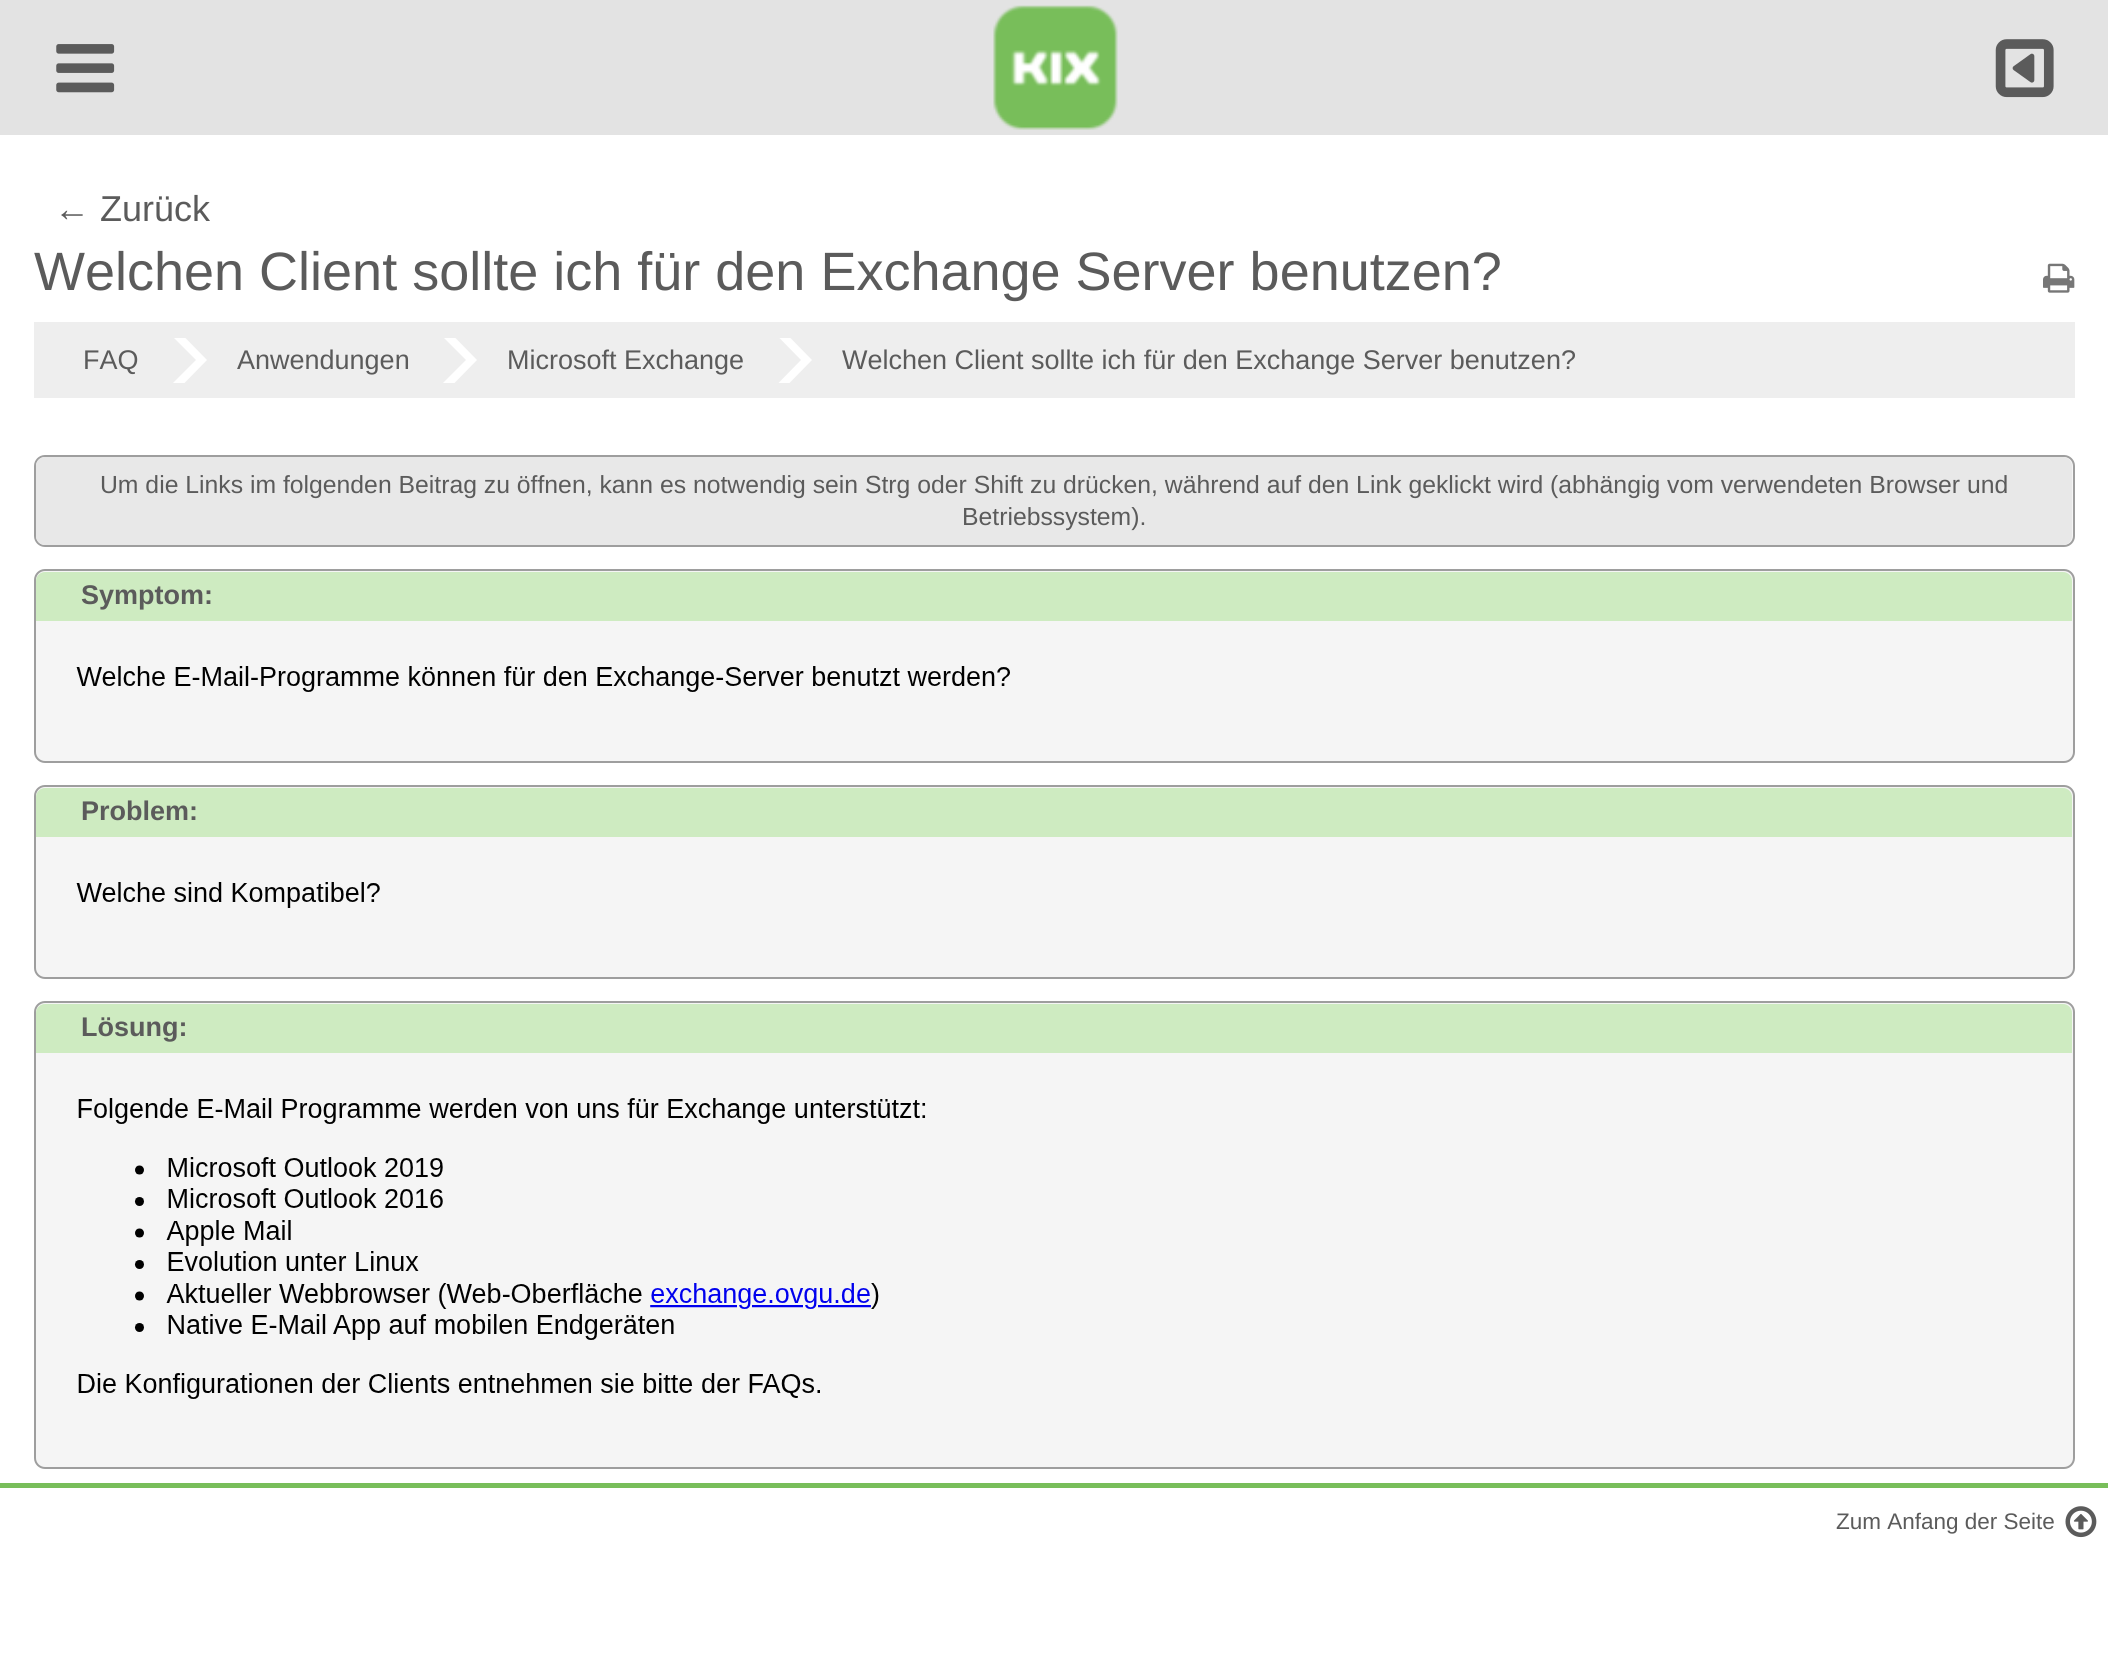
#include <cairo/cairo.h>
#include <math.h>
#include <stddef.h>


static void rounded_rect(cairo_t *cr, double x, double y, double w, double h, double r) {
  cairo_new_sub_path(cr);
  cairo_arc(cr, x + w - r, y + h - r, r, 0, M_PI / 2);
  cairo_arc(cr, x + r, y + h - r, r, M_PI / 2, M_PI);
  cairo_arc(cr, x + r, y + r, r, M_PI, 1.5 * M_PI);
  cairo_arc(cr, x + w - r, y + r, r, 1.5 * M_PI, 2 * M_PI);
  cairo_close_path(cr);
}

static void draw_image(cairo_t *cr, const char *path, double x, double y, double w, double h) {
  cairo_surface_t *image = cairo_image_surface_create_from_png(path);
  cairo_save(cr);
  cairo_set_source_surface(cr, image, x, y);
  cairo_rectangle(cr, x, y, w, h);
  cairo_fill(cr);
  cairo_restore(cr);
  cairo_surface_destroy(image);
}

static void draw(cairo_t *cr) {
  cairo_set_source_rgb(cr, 1, 1, 1);
  cairo_paint(cr);
  cairo_set_source_rgb(cr, 227 / 255.0, 227 / 255.0, 227 / 255.0);
  cairo_rectangle(cr, 0, 0, 2108, 135);
  cairo_fill(cr);
  draw_image(cr, "images/1.png", 56, 44, 59, 49);
  draw_image(cr, "images/2.png", 993, 5, 125, 125);
  draw_image(cr, "images/3.png", 1995, 39, 59, 59);
  draw_image(cr, "images/4.png", 2043, 263, 32, 30);
  cairo_set_source_rgb(cr, 238 / 255.0, 238 / 255.0, 238 / 255.0);
  cairo_rectangle(cr, 34, 322, 2041, 76);
  cairo_fill(cr);
  cairo_save(cr);
  cairo_rectangle(cr, 158, 338, 252, 45);
  cairo_clip(cr);
  cairo_set_source_rgb(cr, 1, 1, 1);
  cairo_new_path(cr);
  cairo_move_to(cr, 158, 410);
  cairo_line_to(cr, 158, 310);
  cairo_line_to(cr, 207, 360);
  cairo_close_path(cr);
  cairo_fill(cr);
  cairo_set_source_rgb(cr, 238 / 255.0, 238 / 255.0, 238 / 255.0);
  cairo_new_path(cr);
  cairo_move_to(cr, 146, 410);
  cairo_line_to(cr, 146, 310);
  cairo_line_to(cr, 196, 360);
  cairo_close_path(cr);
  cairo_fill(cr);
  cairo_restore(cr);
  cairo_save(cr);
  cairo_rectangle(cr, 428, 338, 317, 45);
  cairo_clip(cr);
  cairo_set_source_rgb(cr, 1, 1, 1);
  cairo_new_path(cr);
  cairo_move_to(cr, 428, 410);
  cairo_line_to(cr, 428, 310);
  cairo_line_to(cr, 477, 360);
  cairo_close_path(cr);
  cairo_fill(cr);
  cairo_set_source_rgb(cr, 238 / 255.0, 238 / 255.0, 238 / 255.0);
  cairo_new_path(cr);
  cairo_move_to(cr, 416, 410);
  cairo_line_to(cr, 416, 310);
  cairo_line_to(cr, 466, 360);
  cairo_close_path(cr);
  cairo_fill(cr);
  cairo_restore(cr);
  cairo_save(cr);
  cairo_rectangle(cr, 763, 338, 812, 45);
  cairo_clip(cr);
  cairo_set_source_rgb(cr, 1, 1, 1);
  cairo_new_path(cr);
  cairo_move_to(cr, 763, 410);
  cairo_line_to(cr, 763, 310);
  cairo_line_to(cr, 812, 360);
  cairo_close_path(cr);
  cairo_fill(cr);
  cairo_set_source_rgb(cr, 238 / 255.0, 238 / 255.0, 238 / 255.0);
  cairo_new_path(cr);
  cairo_move_to(cr, 752, 410);
  cairo_line_to(cr, 752, 310);
  cairo_line_to(cr, 801, 360);
  cairo_close_path(cr);
  cairo_fill(cr);
  cairo_restore(cr);
  cairo_set_source_rgb(cr, 245 / 255.0, 245 / 255.0, 245 / 255.0);
  rounded_rect(cr, 35, 456, 2039, 90, 10);
  cairo_fill_preserve(cr);
  cairo_set_source_rgb(cr, 158 / 255.0, 158 / 255.0, 158 / 255.0);
  cairo_stroke(cr);
  cairo_set_source_rgb(cr, 232 / 255.0, 232 / 255.0, 232 / 255.0);
  rounded_rect(cr, 36, 457, 2036, 88, 9);
  cairo_fill(cr);
  cairo_set_source_rgb(cr, 245 / 255.0, 245 / 255.0, 245 / 255.0);
  rounded_rect(cr, 35, 570, 2039, 192, 10);
  cairo_fill_preserve(cr);
  cairo_set_source_rgb(cr, 158 / 255.0, 158 / 255.0, 158 / 255.0);
  cairo_stroke(cr);
  cairo_set_source_rgb(cr, 206 / 255.0, 235 / 255.0, 193 / 255.0);
  cairo_new_path(cr);
  cairo_move_to(cr, 45, 572);
  cairo_line_to(cr, 2063, 572);
  cairo_curve_to(cr, 2068, 572, 2072, 576, 2072, 581);
  cairo_line_to(cr, 2072, 621);
  cairo_line_to(cr, 36, 621);
  cairo_line_to(cr, 36, 581);
  cairo_curve_to(cr, 36, 576, 40, 572, 45, 572);
  cairo_close_path(cr);
  cairo_fill(cr);
  draw_image(cr, "images/5.png", 76, 666, 934, 26);
  cairo_set_source_rgb(cr, 245 / 255.0, 245 / 255.0, 245 / 255.0);
  rounded_rect(cr, 35, 786, 2039, 192, 10);
  cairo_fill_preserve(cr);
  cairo_set_source_rgb(cr, 158 / 255.0, 158 / 255.0, 158 / 255.0);
  cairo_stroke(cr);
  cairo_set_source_rgb(cr, 206 / 255.0, 235 / 255.0, 193 / 255.0);
  cairo_new_path(cr);
  cairo_move_to(cr, 45, 788);
  cairo_line_to(cr, 2063, 788);
  cairo_curve_to(cr, 2068, 788, 2072, 792, 2072, 797);
  cairo_line_to(cr, 2072, 837);
  cairo_line_to(cr, 36, 837);
  cairo_line_to(cr, 36, 797);
  cairo_curve_to(cr, 36, 792, 40, 788, 45, 788);
  cairo_close_path(cr);
  cairo_fill(cr);
  draw_image(cr, "images/6.png", 76, 882, 304, 26);
  cairo_set_source_rgb(cr, 245 / 255.0, 245 / 255.0, 245 / 255.0);
  rounded_rect(cr, 35, 1002, 2039, 466, 10);
  cairo_fill_preserve(cr);
  cairo_set_source_rgb(cr, 158 / 255.0, 158 / 255.0, 158 / 255.0);
  cairo_stroke(cr);
  cairo_set_source_rgb(cr, 206 / 255.0, 235 / 255.0, 193 / 255.0);
  cairo_new_path(cr);
  cairo_move_to(cr, 45, 1004);
  cairo_line_to(cr, 2063, 1004);
  cairo_curve_to(cr, 2068, 1004, 2072, 1008, 2072, 1013);
  cairo_line_to(cr, 2072, 1053);
  cairo_line_to(cr, 36, 1053);
  cairo_line_to(cr, 36, 1013);
  cairo_curve_to(cr, 36, 1008, 40, 1004, 45, 1004);
  cairo_close_path(cr);
  cairo_fill(cr);
  draw_image(cr, "images/7.png", 78, 1098, 848, 301);
  cairo_set_source_rgb(cr, 120 / 255.0, 190 / 255.0, 90 / 255.0);
  cairo_rectangle(cr, 0, 1483, 2108, 5);
  cairo_fill(cr);
  draw_image(cr, "images/8.png", 2065, 1506, 32, 32);
  cairo_select_font_face(cr, "Liberation Sans", CAIRO_FONT_SLANT_NORMAL, CAIRO_FONT_WEIGHT_NORMAL);
  cairo_set_font_size(cr, 36);
  cairo_set_source_rgb(cr, 91 / 255.0, 91 / 255.0, 91 / 255.0);
  cairo_move_to(cr, 54, 221);
  cairo_show_text(cr, "← Zurück");
  cairo_set_font_size(cr, 54);
  cairo_move_to(cr, 34, 290);
  cairo_show_text(cr, "Welchen Client sollte ich für den Exchange Server benutzen?");
  cairo_set_font_size(cr, 27);
  cairo_move_to(cr, 83, 369);
  cairo_show_text(cr, "FAQ");
  cairo_move_to(cr, 237, 369);
  cairo_show_text(cr, "Anwendungen");
  cairo_move_to(cr, 507, 369);
  cairo_show_text(cr, "Microsoft Exchange");
  cairo_move_to(cr, 842, 369);
  cairo_show_text(cr, "Welchen Client sollte ich für den Exchange Server benutzen?");
  cairo_set_font_size(cr, 24.75);
  cairo_move_to(cr, 100, 493);
  cairo_show_text(cr, "Um die Links im folgenden Beitrag zu öffnen, kann es notwendig sein Strg oder Shift zu drücken, während auf den Link geklickt wird (abhängig vom verwendeten Browser und");
  cairo_move_to(cr, 962, 525);
  cairo_show_text(cr, "Betriebssystem).");
  cairo_select_font_face(cr, "Liberation Sans", CAIRO_FONT_SLANT_NORMAL, CAIRO_FONT_WEIGHT_BOLD);
  cairo_set_font_size(cr, 27);
  cairo_move_to(cr, 81, 604);
  cairo_show_text(cr, "Symptom:");
  cairo_move_to(cr, 81, 820);
  cairo_show_text(cr, "Problem:");
  cairo_move_to(cr, 81, 1036);
  cairo_show_text(cr, "Lösung:");
  cairo_select_font_face(cr, "Liberation Sans", CAIRO_FONT_SLANT_NORMAL, CAIRO_FONT_WEIGHT_NORMAL);
  cairo_set_font_size(cr, 22.5);
  cairo_move_to(cr, 1836, 1529);
  cairo_show_text(cr, "Zum Anfang der Seite");
}

int main(void) {
  cairo_surface_t *surface = cairo_image_surface_create(CAIRO_FORMAT_RGB24, 2108, 1669);
  cairo_t *cr = cairo_create(surface);
  cairo_font_options_t *options = cairo_font_options_create();
  cairo_font_options_set_hint_metrics(options, CAIRO_HINT_METRICS_OFF);
  cairo_font_options_set_hint_style(options, CAIRO_HINT_STYLE_NONE);
  cairo_set_font_options(cr, options);
  cairo_set_miter_limit(cr, 4);
  draw(cr);
  cairo_surface_write_to_png(surface, "out.png");
  cairo_font_options_destroy(options);
  cairo_destroy(cr);
  cairo_surface_destroy(surface);
  return 0;
}
